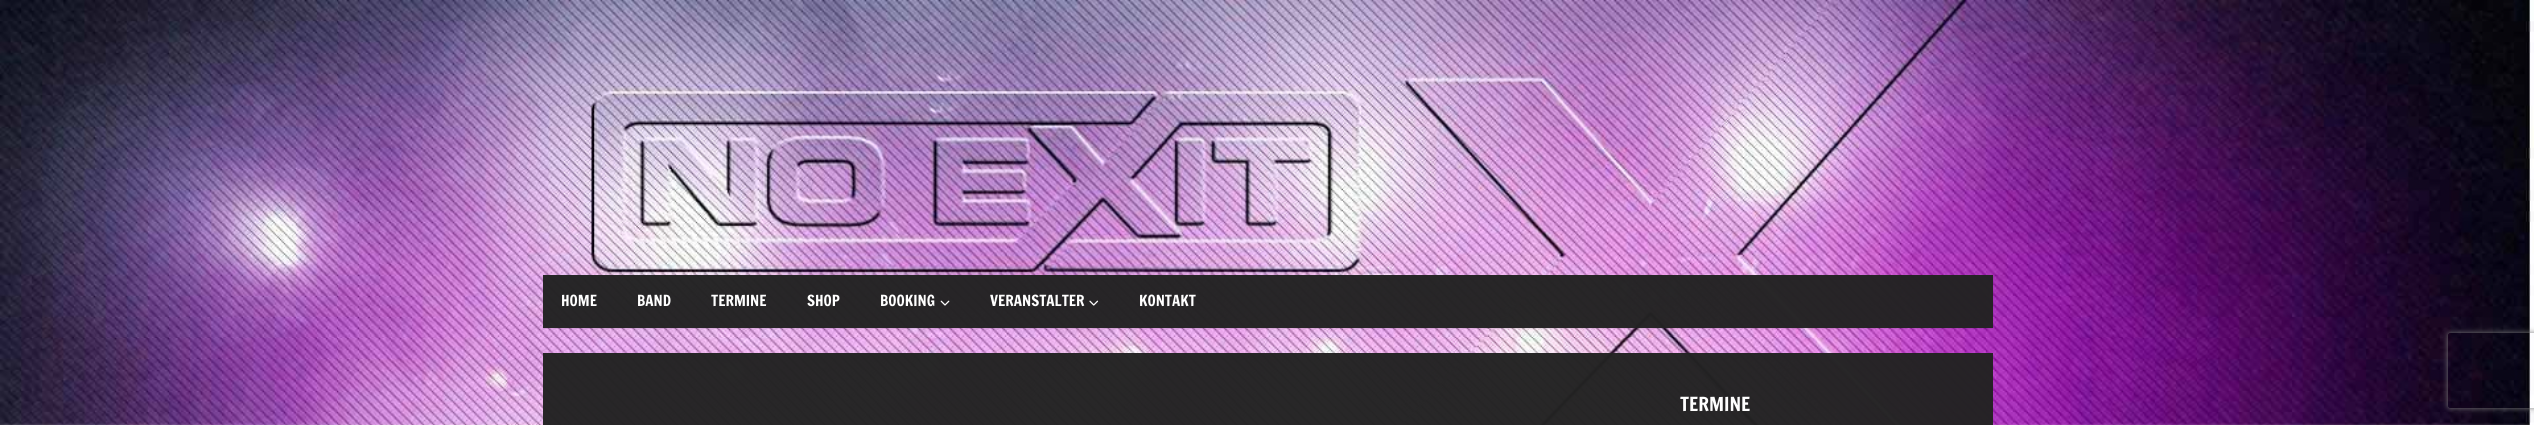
#include <cairo/cairo.h>
#include <math.h>
#include <stddef.h>


static void rounded_rect(cairo_t *cr, double x, double y, double w, double h, double r) {
  cairo_new_sub_path(cr);
  cairo_arc(cr, x + w - r, y + h - r, r, 0, M_PI / 2);
  cairo_arc(cr, x + r, y + h - r, r, M_PI / 2, M_PI);
  cairo_arc(cr, x + r, y + r, r, M_PI, 1.5 * M_PI);
  cairo_arc(cr, x + w - r, y + r, r, 1.5 * M_PI, 2 * M_PI);
  cairo_close_path(cr);
}

static void draw_shadow(cairo_t *cr, double x, double y, double w, double h, double r, double blur, double alpha) {
  cairo_push_group_with_content(cr, CAIRO_CONTENT_ALPHA);
  cairo_set_operator(cr, CAIRO_OPERATOR_SOURCE);
  for (int i = 15; i >= -15 && fmin(w, h) + blur * i / 3 > 0; i -= 2) {
    double e = blur * i / 6;
    cairo_set_source_rgba(cr, 0, 0, 0, alpha * erfc((i - 1) / 8.5) / 2);
    rounded_rect(cr, x - e, y - e, w + 2 * e, h + 2 * e, fmax(0, fmin(r + e + blur * .6, fmin(w, h) / 2 + e)));
    cairo_fill(cr);
  }
  cairo_pattern_t *soft = cairo_pop_group(cr);
  cairo_mask(cr, soft);
  cairo_pattern_destroy(soft);
}

static void draw_image(cairo_t *cr, const char *path, double x, double y, double w, double h) {
  cairo_surface_t *image = cairo_image_surface_create_from_png(path);
  cairo_save(cr);
  cairo_set_source_surface(cr, image, x, y);
  cairo_rectangle(cr, x, y, w, h);
  cairo_fill(cr);
  cairo_restore(cr);
  cairo_surface_destroy(image);
}

static void draw(cairo_t *cr) {
  cairo_set_source_rgb(cr, 1, 1, 1);
  cairo_paint(cr);
  draw_image(cr, "images/1.png", 0, 0, 2534, 425);
  cairo_save(cr);
  cairo_set_fill_rule(cr, CAIRO_FILL_RULE_EVEN_ODD);
  cairo_new_path(cr);
  cairo_move_to(cr, 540, 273);
  cairo_line_to(cr, 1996, 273);
  cairo_line_to(cr, 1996, 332);
  cairo_line_to(cr, 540, 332);
  cairo_close_path(cr);
  cairo_move_to(cr, 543, 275);
  cairo_line_to(cr, 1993, 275);
  cairo_line_to(cr, 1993, 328);
  cairo_line_to(cr, 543, 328);
  cairo_close_path(cr);
  cairo_clip(cr);
  cairo_set_source_rgb(cr, 0, 0, 0);
  draw_shadow(cr, 543, 276, 1450, 53, 0, 0.5, 0.1);
  cairo_restore(cr);
  cairo_set_source_rgba(cr, 34 / 255.0, 34 / 255.0, 34 / 255.0, 0.97);
  cairo_rectangle(cr, 543, 275, 1450, 53);
  cairo_fill(cr);
  draw_image(cr, "images/2.png", 940, 300, 10, 6);
  draw_image(cr, "images/3.png", 1089, 300, 10, 6);
  cairo_rectangle(cr, 543, 353, 1450, 72);
  cairo_fill(cr);
  cairo_save(cr);
  cairo_set_fill_rule(cr, CAIRO_FILL_RULE_EVEN_ODD);
  cairo_new_path(cr);
  cairo_move_to(cr, 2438, 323);
  cairo_line_to(cr, 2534, 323);
  cairo_line_to(cr, 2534, 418);
  cairo_line_to(cr, 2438, 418);
  cairo_close_path(cr);
  cairo_move_to(cr, 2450.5, 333);
  cairo_line_to(cr, 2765.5, 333);
  cairo_curve_to(cr, 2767, 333, 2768, 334, 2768, 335.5);
  cairo_line_to(cr, 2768, 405.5);
  cairo_curve_to(cr, 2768, 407, 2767, 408, 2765.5, 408);
  cairo_line_to(cr, 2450.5, 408);
  cairo_curve_to(cr, 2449, 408, 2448, 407, 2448, 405.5);
  cairo_line_to(cr, 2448, 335.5);
  cairo_curve_to(cr, 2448, 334, 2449, 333, 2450.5, 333);
  cairo_close_path(cr);
  cairo_clip(cr);
  cairo_set_source_rgb(cr, 128 / 255.0, 128 / 255.0, 128 / 255.0);
  draw_shadow(cr, 2448, 333, 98, 75, 2.5, 3, 1);
  cairo_restore(cr);
  cairo_select_font_face(cr, "Francois One", CAIRO_FONT_SLANT_NORMAL, CAIRO_FONT_WEIGHT_NORMAL);
  cairo_set_font_size(cr, 15);
  cairo_set_source_rgb(cr, 1, 1, 1);
  cairo_move_to(cr, 561, 306);
  cairo_show_text(cr, "HOME");
  cairo_move_to(cr, 637, 306);
  cairo_show_text(cr, "BAND");
  cairo_move_to(cr, 711, 306);
  cairo_show_text(cr, "TERMINE");
  cairo_move_to(cr, 807, 306);
  cairo_show_text(cr, "SHOP");
  cairo_move_to(cr, 880, 306);
  cairo_show_text(cr, "BOOKING");
  cairo_move_to(cr, 990, 306);
  cairo_show_text(cr, "VERANSTALTER");
  cairo_move_to(cr, 1139, 306);
  cairo_show_text(cr, "KONTAKT");
  cairo_set_font_size(cr, 19);
  cairo_move_to(cr, 1680, 411);
  cairo_show_text(cr, "TERMINE");
}

int main(void) {
  cairo_surface_t *surface = cairo_image_surface_create(CAIRO_FORMAT_RGB24, 2534, 425);
  cairo_t *cr = cairo_create(surface);
  cairo_font_options_t *options = cairo_font_options_create();
  cairo_font_options_set_hint_metrics(options, CAIRO_HINT_METRICS_OFF);
  cairo_font_options_set_hint_style(options, CAIRO_HINT_STYLE_NONE);
  cairo_set_font_options(cr, options);
  cairo_set_miter_limit(cr, 4);
  draw(cr);
  cairo_surface_write_to_png(surface, "out.png");
  cairo_font_options_destroy(options);
  cairo_destroy(cr);
  cairo_surface_destroy(surface);
  return 0;
}
